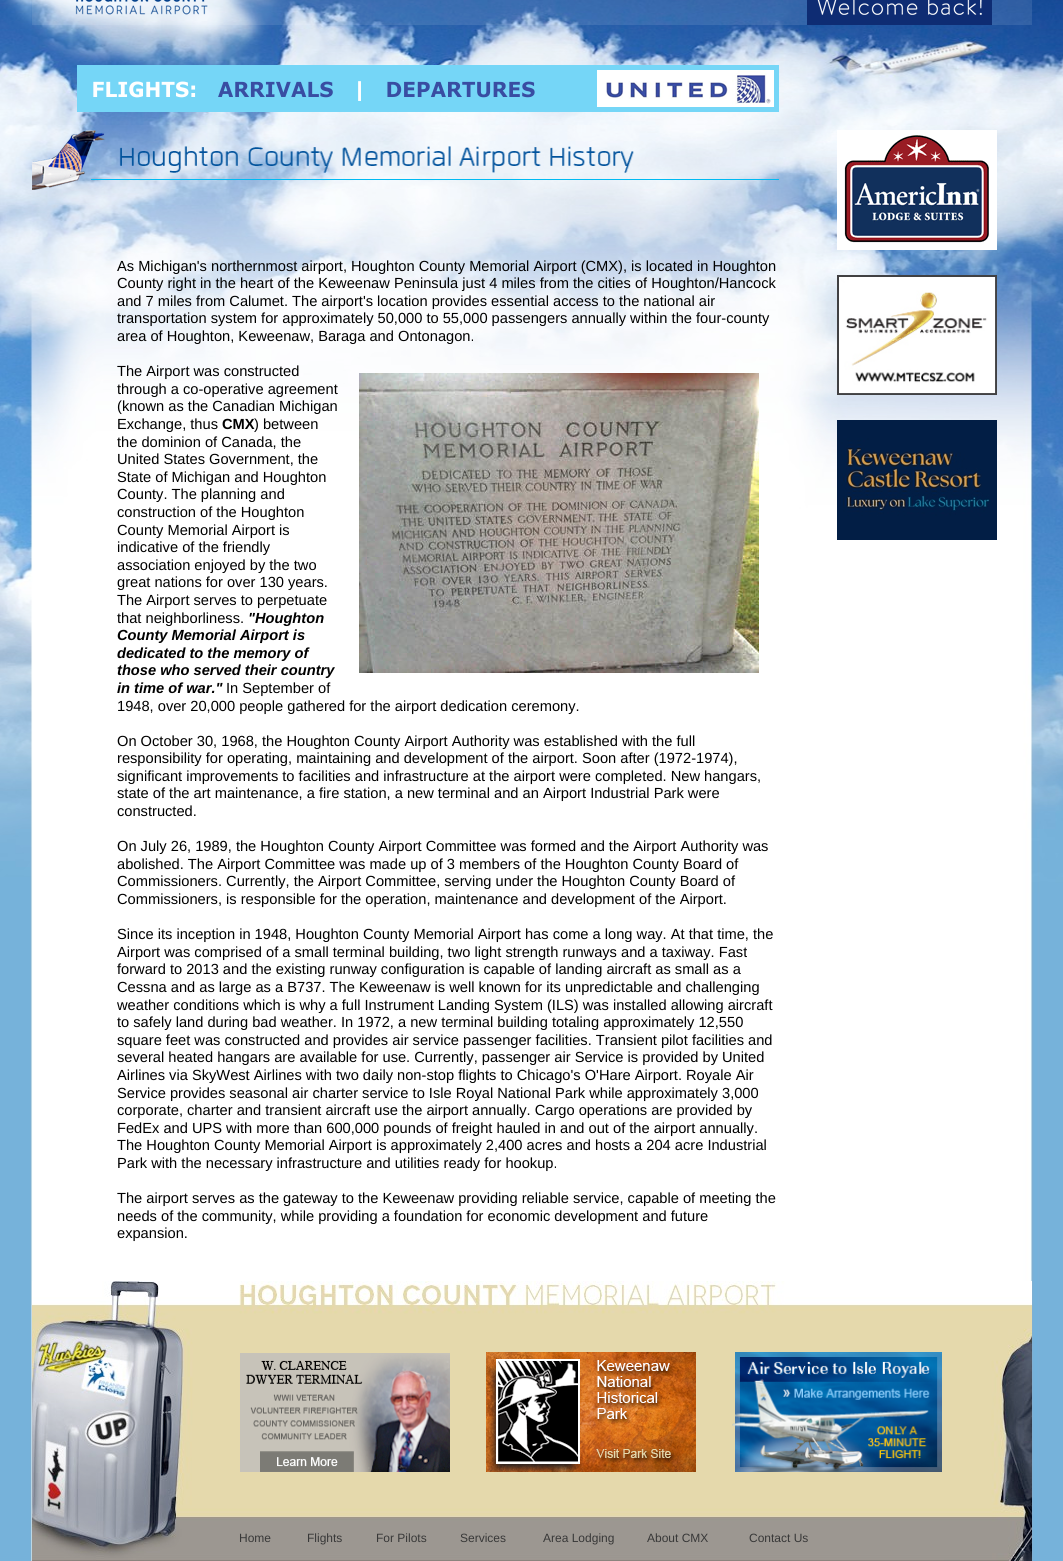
#include <cairo/cairo.h>
#include <math.h>
#include <stddef.h>


static void draw_image(cairo_t *cr, const char *path, double x, double y, double w, double h) {
  cairo_surface_t *image = cairo_image_surface_create_from_png(path);
  cairo_save(cr);
  cairo_set_source_surface(cr, image, x, y);
  cairo_rectangle(cr, x, y, w, h);
  cairo_fill(cr);
  cairo_restore(cr);
  cairo_surface_destroy(image);
}

static void draw(cairo_t *cr) {
  cairo_set_source_rgb(cr, 1, 1, 1);
  cairo_paint(cr);
  draw_image(cr, "images/1.png", 0, 0, 1063, 1561);
  draw_image(cr, "images/2.png", 32, 0, 1000, 25);
  draw_image(cr, "images/3.png", 77, 65, 702, 47);
  draw_image(cr, "images/4.png", 32, 130, 747, 60);
  draw_image(cr, "images/5.png", 359, 373, 400, 300);
  draw_image(cr, "images/6.png", 837, 130, 160, 120);
  draw_image(cr, "images/7.png", 837, 275, 160, 120);
  draw_image(cr, "images/8.png", 837, 420, 160, 120);
  draw_image(cr, "images/9.png", 32, 1281, 1000, 280);
  draw_image(cr, "images/10.png", 240, 1353, 210, 119);
  draw_image(cr, "images/11.png", 486, 1352, 210, 120);
  draw_image(cr, "images/12.png", 732, 1352, 210, 120);
  cairo_select_font_face(cr, "Liberation Sans", CAIRO_FONT_SLANT_NORMAL, CAIRO_FONT_WEIGHT_NORMAL);
  cairo_set_font_size(cr, 14.65);
  cairo_set_source_rgb(cr, 0, 0, 0);
  cairo_move_to(cr, 117, 271);
  cairo_show_text(cr, "As Michigan's northernmost airport, Houghton County Memorial Airport (CMX), is located in Houghton");
  cairo_move_to(cr, 117, 288);
  cairo_show_text(cr, "County right in the heart of the Keweenaw Peninsula just 4 miles from the cities of Houghton/Hancock");
  cairo_move_to(cr, 117, 306);
  cairo_show_text(cr, "and 7 miles from Calumet. The airport's location provides essential access to the national air");
  cairo_move_to(cr, 117, 323);
  cairo_show_text(cr, "transportation system for approximately 50,000 to 55,000 passengers annually within the four-county");
  cairo_move_to(cr, 117, 341);
  cairo_show_text(cr, "area of Houghton, Keweenaw, Baraga and Ontonagon.");
  cairo_move_to(cr, 117, 376);
  cairo_show_text(cr, "The Airport was constructed");
  cairo_move_to(cr, 117, 394);
  cairo_show_text(cr, "through a co-operative agreement");
  cairo_move_to(cr, 117, 411);
  cairo_show_text(cr, "(known as the Canadian Michigan");
  cairo_move_to(cr, 117, 429);
  cairo_show_text(cr, "Exchange, thus");
  cairo_select_font_face(cr, "Liberation Sans", CAIRO_FONT_SLANT_NORMAL, CAIRO_FONT_WEIGHT_BOLD);
  cairo_move_to(cr, 222, 429);
  cairo_show_text(cr, "CMX");
  cairo_select_font_face(cr, "Liberation Sans", CAIRO_FONT_SLANT_NORMAL, CAIRO_FONT_WEIGHT_NORMAL);
  cairo_move_to(cr, 254, 429);
  cairo_show_text(cr, ") between");
  cairo_move_to(cr, 117, 447);
  cairo_show_text(cr, "the dominion of Canada, the");
  cairo_move_to(cr, 117, 464);
  cairo_show_text(cr, "United States Government, the");
  cairo_move_to(cr, 117, 482);
  cairo_show_text(cr, "State of Michigan and Houghton");
  cairo_move_to(cr, 117, 499);
  cairo_show_text(cr, "County. The planning and");
  cairo_move_to(cr, 117, 517);
  cairo_show_text(cr, "construction of the Houghton");
  cairo_move_to(cr, 117, 535);
  cairo_show_text(cr, "County Memorial Airport is");
  cairo_move_to(cr, 117, 552);
  cairo_show_text(cr, "indicative of the friendly");
  cairo_move_to(cr, 117, 570);
  cairo_show_text(cr, "association enjoyed by the two");
  cairo_move_to(cr, 117, 587);
  cairo_show_text(cr, "great nations for over 130 years.");
  cairo_move_to(cr, 117, 605);
  cairo_show_text(cr, "The Airport serves to perpetuate");
  cairo_move_to(cr, 117, 623);
  cairo_show_text(cr, "that neighborliness.");
  cairo_select_font_face(cr, "Liberation Sans", CAIRO_FONT_SLANT_ITALIC, CAIRO_FONT_WEIGHT_BOLD);
  cairo_move_to(cr, 248, 623);
  cairo_show_text(cr, "\"Houghton");
  cairo_move_to(cr, 117, 640);
  cairo_show_text(cr, "County Memorial Airport is");
  cairo_move_to(cr, 117, 658);
  cairo_show_text(cr, "dedicated to the memory of");
  cairo_move_to(cr, 117, 675);
  cairo_show_text(cr, "those who served their country");
  cairo_move_to(cr, 117, 693);
  cairo_show_text(cr, "in time of war.\"");
  cairo_select_font_face(cr, "Liberation Sans", CAIRO_FONT_SLANT_NORMAL, CAIRO_FONT_WEIGHT_NORMAL);
  cairo_move_to(cr, 226, 693);
  cairo_show_text(cr, "In September of");
  cairo_move_to(cr, 117, 711);
  cairo_show_text(cr, "1948, over 20,000 people gathered for the airport dedication ceremony.");
  cairo_move_to(cr, 117, 746);
  cairo_show_text(cr, "On October 30, 1968, the Houghton County Airport Authority was established with the full");
  cairo_move_to(cr, 117, 763);
  cairo_show_text(cr, "responsibility for operating, maintaining and development of the airport. Soon after (1972-1974),");
  cairo_move_to(cr, 117, 781);
  cairo_show_text(cr, "significant improvements to facilities and infrastructure at the airport were completed. New hangars,");
  cairo_move_to(cr, 117, 798);
  cairo_show_text(cr, "state of the art maintenance, a fire station, a new terminal and an Airport Industrial Park were");
  cairo_move_to(cr, 117, 816);
  cairo_show_text(cr, "constructed.");
  cairo_move_to(cr, 117, 851);
  cairo_show_text(cr, "On July 26, 1989, the Houghton County Airport Committee was formed and the Airport Authority was");
  cairo_move_to(cr, 117, 869);
  cairo_show_text(cr, "abolished. The Airport Committee was made up of 3 members of the Houghton County Board of");
  cairo_move_to(cr, 117, 886);
  cairo_show_text(cr, "Commissioners. Currently, the Airport Committee, serving under the Houghton County Board of");
  cairo_move_to(cr, 117, 904);
  cairo_show_text(cr, "Commissioners, is responsible for the operation, maintenance and development of the Airport.");
  cairo_move_to(cr, 117, 939);
  cairo_show_text(cr, "Since its inception in 1948, Houghton County Memorial Airport has come a long way. At that time, the");
  cairo_move_to(cr, 117, 957);
  cairo_show_text(cr, "Airport was comprised of a small terminal building, two light strength runways and a taxiway. Fast");
  cairo_move_to(cr, 117, 974);
  cairo_show_text(cr, "forward to 2013 and the existing runway configuration is capable of landing aircraft as small as a");
  cairo_move_to(cr, 117, 992);
  cairo_show_text(cr, "Cessna and as large as a B737. The Keweenaw is well known for its unpredictable and challenging");
  cairo_move_to(cr, 117, 1010);
  cairo_show_text(cr, "weather conditions which is why a full Instrument Landing System (ILS) was installed allowing aircraft");
  cairo_move_to(cr, 117, 1027);
  cairo_show_text(cr, "to safely land during bad weather. In 1972, a new terminal building totaling approximately 12,550");
  cairo_move_to(cr, 117, 1045);
  cairo_show_text(cr, "square feet was constructed and provides air service passenger facilities. Transient pilot facilities and");
  cairo_move_to(cr, 117, 1062);
  cairo_show_text(cr, "several heated hangars are available for use. Currently, passenger air Service is provided by United");
  cairo_move_to(cr, 117, 1080);
  cairo_show_text(cr, "Airlines via SkyWest Airlines with two daily non-stop flights to Chicago's O'Hare Airport. Royale Air");
  cairo_move_to(cr, 117, 1098);
  cairo_show_text(cr, "Service provides seasonal air charter service to Isle Royal National Park while approximately 3,000");
  cairo_move_to(cr, 117, 1115);
  cairo_show_text(cr, "corporate, charter and transient aircraft use the airport annually. Cargo operations are provided by");
  cairo_move_to(cr, 117, 1133);
  cairo_show_text(cr, "FedEx and UPS with more than 600,000 pounds of freight hauled in and out of the airport annually.");
  cairo_move_to(cr, 117, 1150);
  cairo_show_text(cr, "The Houghton County Memorial Airport is approximately 2,400 acres and hosts a 204 acre Industrial");
  cairo_move_to(cr, 117, 1168);
  cairo_show_text(cr, "Park with the necessary infrastructure and utilities ready for hookup.");
  cairo_move_to(cr, 117, 1203);
  cairo_show_text(cr, "The airport serves as the gateway to the Keweenaw providing reliable service, capable of meeting the");
  cairo_move_to(cr, 117, 1221);
  cairo_show_text(cr, "needs of the community, while providing a foundation for economic development and future");
  cairo_move_to(cr, 117, 1238);
  cairo_show_text(cr, "expansion.");
  cairo_set_font_size(cr, 12);
  cairo_set_source_rgb(cr, 56 / 255.0, 56 / 255.0, 56 / 255.0);
  cairo_move_to(cr, 239, 1542);
  cairo_show_text(cr, "Home");
  cairo_move_to(cr, 307, 1542);
  cairo_show_text(cr, "Flights");
  cairo_move_to(cr, 376, 1542);
  cairo_show_text(cr, "For Pilots");
  cairo_move_to(cr, 460, 1542);
  cairo_show_text(cr, "Services");
  cairo_move_to(cr, 543, 1542);
  cairo_show_text(cr, "Area Lodging");
  cairo_move_to(cr, 647, 1542);
  cairo_show_text(cr, "About CMX");
  cairo_move_to(cr, 749, 1542);
  cairo_show_text(cr, "Contact Us");
}

int main(void) {
  cairo_surface_t *surface = cairo_image_surface_create(CAIRO_FORMAT_RGB24, 1063, 1561);
  cairo_t *cr = cairo_create(surface);
  cairo_font_options_t *options = cairo_font_options_create();
  cairo_font_options_set_hint_metrics(options, CAIRO_HINT_METRICS_OFF);
  cairo_font_options_set_hint_style(options, CAIRO_HINT_STYLE_NONE);
  cairo_set_font_options(cr, options);
  cairo_set_miter_limit(cr, 4);
  draw(cr);
  cairo_surface_write_to_png(surface, "out.png");
  cairo_font_options_destroy(options);
  cairo_destroy(cr);
  cairo_surface_destroy(surface);
  return 0;
}
